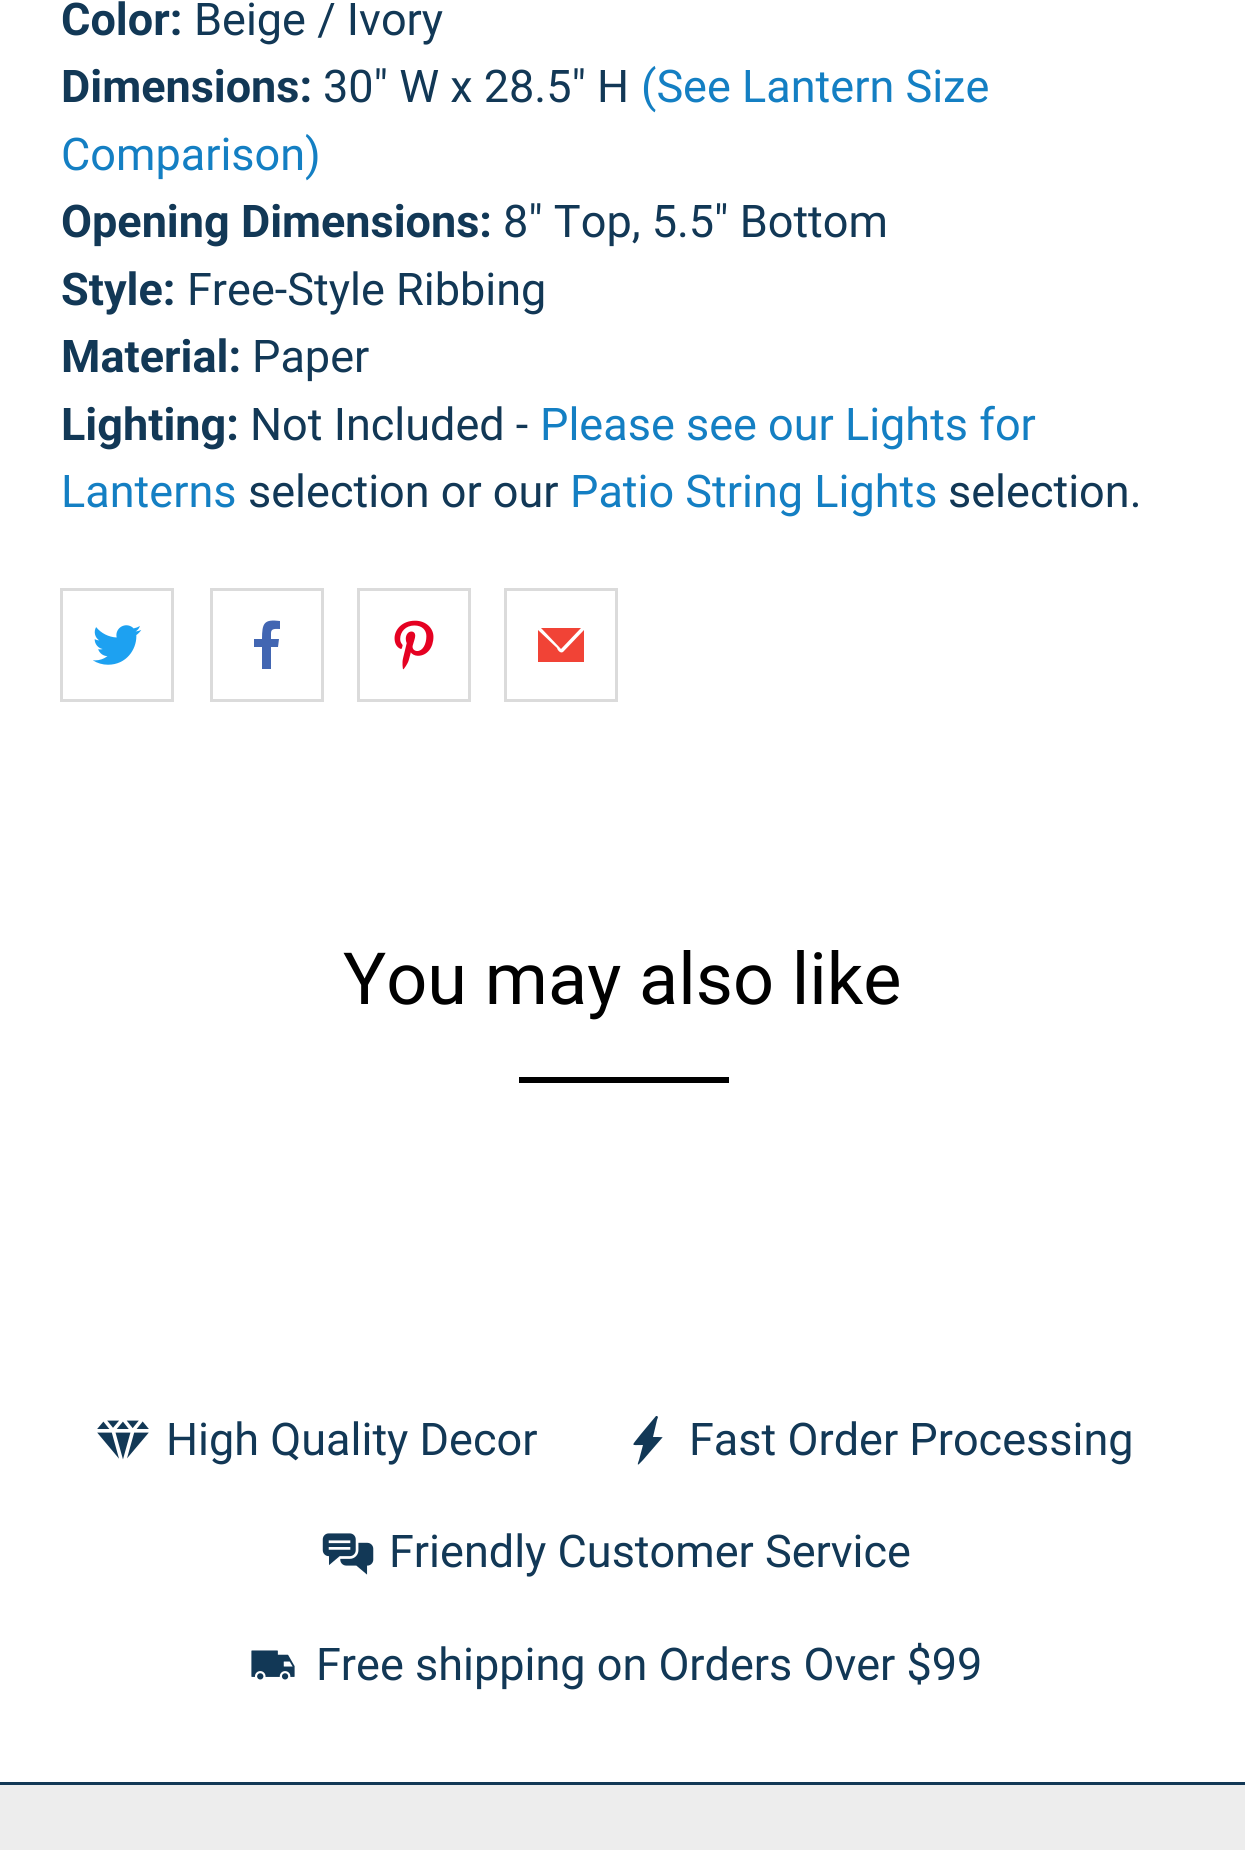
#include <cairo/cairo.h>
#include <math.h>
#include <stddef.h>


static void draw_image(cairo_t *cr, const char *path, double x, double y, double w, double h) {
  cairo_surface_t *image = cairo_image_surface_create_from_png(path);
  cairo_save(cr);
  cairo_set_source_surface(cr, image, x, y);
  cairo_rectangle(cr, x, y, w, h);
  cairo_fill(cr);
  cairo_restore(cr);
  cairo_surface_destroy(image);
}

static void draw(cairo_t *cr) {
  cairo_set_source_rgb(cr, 1, 1, 1);
  cairo_paint(cr);
  cairo_rectangle(cr, 61.5, 589.5, 111, 111);
  cairo_set_source_rgb(cr, 219 / 255.0, 219 / 255.0, 219 / 255.0);
  cairo_set_line_width(cr, 3);
  cairo_stroke(cr);
  draw_image(cr, "images/1.png", 93, 625, 49, 40);
  cairo_rectangle(cr, 211.5, 589.5, 111, 111);
  cairo_stroke(cr);
  cairo_set_source_rgb(cr, 66 / 255.0, 102 / 255.0, 178 / 255.0);
  cairo_new_path(cr);
  cairo_move_to(cr, 271, 633);
  cairo_line_to(cr, 271, 639);
  cairo_line_to(cr, 279, 639);
  cairo_line_to(cr, 278, 647);
  cairo_line_to(cr, 271, 647);
  cairo_line_to(cr, 271, 669);
  cairo_line_to(cr, 262, 669);
  cairo_line_to(cr, 262, 647);
  cairo_line_to(cr, 254, 647);
  cairo_line_to(cr, 254, 639);
  cairo_line_to(cr, 262, 639);
  cairo_curve_to(cr, 262, 623, 264, 619, 280, 621);
  cairo_line_to(cr, 280, 629);
  cairo_curve_to(cr, 276, 629, 271, 628, 271, 633);
  cairo_close_path(cr);
  cairo_fill(cr);
  cairo_rectangle(cr, 358.5, 589.5, 111, 111);
  cairo_set_source_rgb(cr, 219 / 255.0, 219 / 255.0, 219 / 255.0);
  cairo_stroke(cr);
  draw_image(cr, "images/2.png", 394, 620, 40, 50);
  cairo_rectangle(cr, 505.5, 589.5, 111, 111);
  cairo_stroke(cr);
  cairo_set_source_rgb(cr, 241 / 255.0, 67 / 255.0, 54 / 255.0);
  cairo_new_path(cr);
  cairo_move_to(cr, 563, 652);
  cairo_curve_to(cr, 560, 654, 557, 649, 557, 648);
  cairo_line_to(cr, 538, 630);
  cairo_line_to(cr, 538, 662);
  cairo_line_to(cr, 584, 662);
  cairo_line_to(cr, 584, 630);
  cairo_close_path(cr);
  cairo_fill(cr);
  cairo_new_path(cr);
  cairo_move_to(cr, 581, 628);
  cairo_line_to(cr, 541, 628);
  cairo_line_to(cr, 561, 649);
  cairo_close_path(cr);
  cairo_fill(cr);
  cairo_set_source_rgb(cr, 0, 0, 0);
  cairo_rectangle(cr, 519, 1077, 210, 6);
  cairo_fill(cr);
  draw_image(cr, "images/3.png", 97, 1420, 52, 40);
  cairo_set_source_rgb(cr, 18 / 255.0, 56 / 255.0, 86 / 255.0);
  cairo_new_path(cr);
  cairo_move_to(cr, 662, 1438);
  cairo_line_to(cr, 643, 1460);
  cairo_curve_to(cr, 639, 1464, 636, 1468, 639, 1460);
  cairo_line_to(cr, 643, 1445);
  cairo_curve_to(cr, 630, 1445, 631, 1447, 641, 1434);
  cairo_line_to(cr, 656, 1416);
  cairo_line_to(cr, 657, 1416);
  cairo_curve_to(cr, 659, 1417, 657, 1419, 657, 1420);
  cairo_line_to(cr, 653, 1437);
  cairo_curve_to(cr, 661, 1437, 664, 1437, 662, 1438);
  cairo_close_path(cr);
  cairo_fill(cr);
  draw_image(cr, "images/4.png", 322, 1533, 52, 42);
  draw_image(cr, "images/5.png", 251, 1650, 44, 30);
  cairo_set_source_rgb(cr, 237 / 255.0, 237 / 255.0, 237 / 255.0);
  cairo_rectangle(cr, 0, 1785, 1245, 65);
  cairo_fill(cr);
  cairo_set_source_rgb(cr, 18 / 255.0, 56 / 255.0, 86 / 255.0);
  cairo_rectangle(cr, 0, 1782, 1245, 3);
  cairo_fill(cr);
  cairo_select_font_face(cr, "Roboto", CAIRO_FONT_SLANT_NORMAL, CAIRO_FONT_WEIGHT_BOLD);
  cairo_set_font_size(cr, 45);
  cairo_move_to(cr, 61, 35);
  cairo_show_text(cr, "Color:");
  cairo_select_font_face(cr, "Roboto", CAIRO_FONT_SLANT_NORMAL, CAIRO_FONT_WEIGHT_NORMAL);
  cairo_move_to(cr, 194, 35);
  cairo_show_text(cr, "Beige / Ivory");
  cairo_select_font_face(cr, "Roboto", CAIRO_FONT_SLANT_NORMAL, CAIRO_FONT_WEIGHT_BOLD);
  cairo_move_to(cr, 61, 102);
  cairo_show_text(cr, "Dimensions:");
  cairo_select_font_face(cr, "Roboto", CAIRO_FONT_SLANT_NORMAL, CAIRO_FONT_WEIGHT_NORMAL);
  cairo_move_to(cr, 323, 102);
  cairo_show_text(cr, "30\" W x 28.5\" H");
  cairo_set_source_rgb(cr, 20 / 255.0, 127 / 255.0, 195 / 255.0);
  cairo_move_to(cr, 641, 102);
  cairo_show_text(cr, "(See Lantern Size");
  cairo_move_to(cr, 61, 170);
  cairo_show_text(cr, "Comparison)");
  cairo_select_font_face(cr, "Roboto", CAIRO_FONT_SLANT_NORMAL, CAIRO_FONT_WEIGHT_BOLD);
  cairo_set_source_rgb(cr, 18 / 255.0, 56 / 255.0, 86 / 255.0);
  cairo_move_to(cr, 61, 237);
  cairo_show_text(cr, "Opening Dimensions:");
  cairo_select_font_face(cr, "Roboto", CAIRO_FONT_SLANT_NORMAL, CAIRO_FONT_WEIGHT_NORMAL);
  cairo_move_to(cr, 503, 237);
  cairo_show_text(cr, "8\" Top, 5.5\" Bottom");
  cairo_select_font_face(cr, "Roboto", CAIRO_FONT_SLANT_NORMAL, CAIRO_FONT_WEIGHT_BOLD);
  cairo_move_to(cr, 61, 305);
  cairo_show_text(cr, "Style:");
  cairo_select_font_face(cr, "Roboto", CAIRO_FONT_SLANT_NORMAL, CAIRO_FONT_WEIGHT_NORMAL);
  cairo_move_to(cr, 187, 305);
  cairo_show_text(cr, "Free-Style Ribbing");
  cairo_select_font_face(cr, "Roboto", CAIRO_FONT_SLANT_NORMAL, CAIRO_FONT_WEIGHT_BOLD);
  cairo_move_to(cr, 61, 372);
  cairo_show_text(cr, "Material:");
  cairo_select_font_face(cr, "Roboto", CAIRO_FONT_SLANT_NORMAL, CAIRO_FONT_WEIGHT_NORMAL);
  cairo_move_to(cr, 252, 372);
  cairo_show_text(cr, "Paper");
  cairo_select_font_face(cr, "Roboto", CAIRO_FONT_SLANT_NORMAL, CAIRO_FONT_WEIGHT_BOLD);
  cairo_move_to(cr, 61, 440);
  cairo_show_text(cr, "Lighting:");
  cairo_select_font_face(cr, "Roboto", CAIRO_FONT_SLANT_NORMAL, CAIRO_FONT_WEIGHT_NORMAL);
  cairo_move_to(cr, 250, 440);
  cairo_show_text(cr, "Not Included -");
  cairo_set_source_rgb(cr, 20 / 255.0, 127 / 255.0, 195 / 255.0);
  cairo_move_to(cr, 540, 440);
  cairo_show_text(cr, "Please see our Lights for");
  cairo_move_to(cr, 61, 507);
  cairo_show_text(cr, "Lanterns");
  cairo_set_source_rgb(cr, 18 / 255.0, 56 / 255.0, 86 / 255.0);
  cairo_move_to(cr, 248, 507);
  cairo_show_text(cr, "selection or our");
  cairo_set_source_rgb(cr, 20 / 255.0, 127 / 255.0, 195 / 255.0);
  cairo_move_to(cr, 570, 507);
  cairo_show_text(cr, "Patio String Lights");
  cairo_set_source_rgb(cr, 18 / 255.0, 56 / 255.0, 86 / 255.0);
  cairo_move_to(cr, 948, 507);
  cairo_show_text(cr, "selection.");
  cairo_set_font_size(cr, 72);
  cairo_set_source_rgb(cr, 0, 0, 0);
  cairo_move_to(cr, 343, 1004);
  cairo_show_text(cr, "You may also like");
  cairo_set_font_size(cr, 45);
  cairo_set_source_rgb(cr, 18 / 255.0, 56 / 255.0, 86 / 255.0);
  cairo_move_to(cr, 166, 1455);
  cairo_show_text(cr, "High Quality Decor");
  cairo_move_to(cr, 689, 1455);
  cairo_show_text(cr, "Fast Order Processing");
  cairo_move_to(cr, 389, 1567);
  cairo_show_text(cr, "Friendly Customer Service");
  cairo_move_to(cr, 316, 1680);
  cairo_show_text(cr, "Free shipping on Orders Over $99");
}

int main(void) {
  cairo_surface_t *surface = cairo_image_surface_create(CAIRO_FORMAT_RGB24, 1245, 1850);
  cairo_t *cr = cairo_create(surface);
  cairo_font_options_t *options = cairo_font_options_create();
  cairo_font_options_set_hint_metrics(options, CAIRO_HINT_METRICS_OFF);
  cairo_font_options_set_hint_style(options, CAIRO_HINT_STYLE_NONE);
  cairo_set_font_options(cr, options);
  cairo_set_miter_limit(cr, 4);
  draw(cr);
  cairo_surface_write_to_png(surface, "out.png");
  cairo_font_options_destroy(options);
  cairo_destroy(cr);
  cairo_surface_destroy(surface);
  return 0;
}
